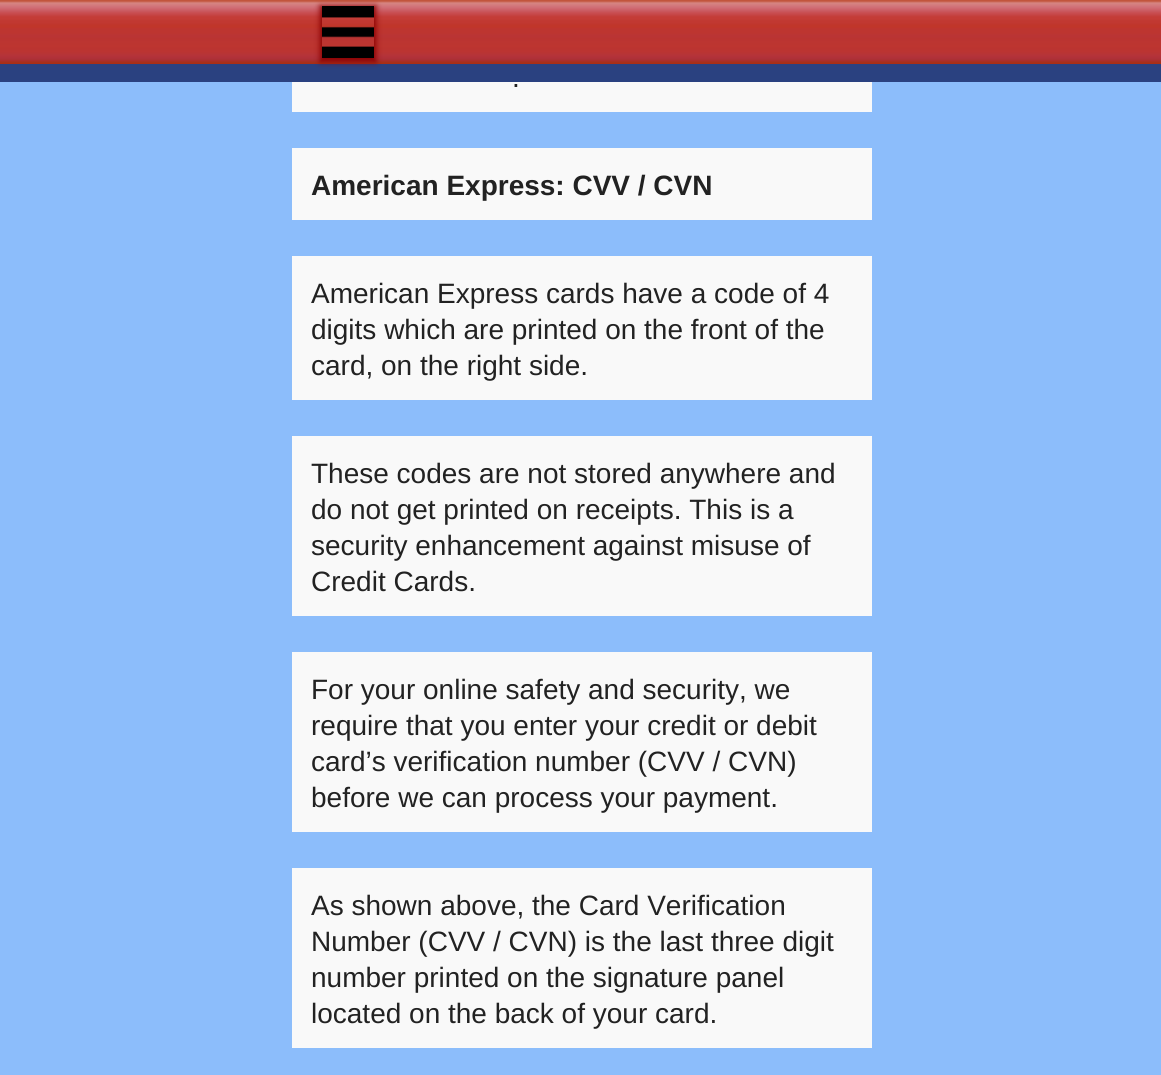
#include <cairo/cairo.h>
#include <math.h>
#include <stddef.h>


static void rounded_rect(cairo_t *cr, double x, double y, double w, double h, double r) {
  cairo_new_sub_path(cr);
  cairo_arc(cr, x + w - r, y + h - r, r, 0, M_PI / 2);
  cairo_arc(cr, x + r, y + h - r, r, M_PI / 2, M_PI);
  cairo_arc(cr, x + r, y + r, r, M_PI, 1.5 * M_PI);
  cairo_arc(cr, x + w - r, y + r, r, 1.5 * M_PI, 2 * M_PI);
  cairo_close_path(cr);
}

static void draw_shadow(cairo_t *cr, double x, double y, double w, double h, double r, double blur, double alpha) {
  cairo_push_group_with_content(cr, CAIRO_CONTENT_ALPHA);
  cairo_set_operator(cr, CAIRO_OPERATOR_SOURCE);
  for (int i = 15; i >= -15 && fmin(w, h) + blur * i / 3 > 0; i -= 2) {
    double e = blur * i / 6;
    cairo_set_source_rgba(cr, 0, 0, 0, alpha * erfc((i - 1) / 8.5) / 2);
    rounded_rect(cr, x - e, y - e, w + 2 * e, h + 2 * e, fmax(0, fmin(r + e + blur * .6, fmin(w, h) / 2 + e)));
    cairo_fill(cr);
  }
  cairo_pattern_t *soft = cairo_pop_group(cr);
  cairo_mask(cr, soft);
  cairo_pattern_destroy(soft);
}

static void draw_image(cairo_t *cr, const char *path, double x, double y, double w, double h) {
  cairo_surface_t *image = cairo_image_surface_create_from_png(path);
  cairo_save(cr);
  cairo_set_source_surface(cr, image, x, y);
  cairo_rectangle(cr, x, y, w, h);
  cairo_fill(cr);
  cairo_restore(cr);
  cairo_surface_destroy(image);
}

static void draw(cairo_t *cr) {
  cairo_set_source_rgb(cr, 140 / 255.0, 189 / 255.0, 251 / 255.0);
  cairo_paint(cr);
  draw_image(cr, "images/1.png", 0, 0, 1161, 64);
  cairo_set_source_rgb(cr, 42 / 255.0, 65 / 255.0, 128 / 255.0);
  cairo_rectangle(cr, 0, 64, 1161, 18);
  cairo_fill(cr);
  cairo_save(cr);
  cairo_set_fill_rule(cr, CAIRO_FILL_RULE_EVEN_ODD);
  cairo_new_path(cr);
  cairo_move_to(cr, 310, 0);
  cairo_line_to(cr, 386, 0);
  cairo_line_to(cr, 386, 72);
  cairo_line_to(cr, 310, 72);
  cairo_close_path(cr);
  cairo_move_to(cr, 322, 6);
  cairo_line_to(cr, 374, 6);
  cairo_line_to(cr, 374, 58);
  cairo_line_to(cr, 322, 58);
  cairo_close_path(cr);
  cairo_clip(cr);
  cairo_set_source_rgb(cr, 139 / 255.0, 0, 0);
  draw_shadow(cr, 320, 6, 56, 56, 0, 3, 1);
  cairo_restore(cr);
  draw_image(cr, "images/2.png", 322, 6, 52, 52);
  cairo_set_source_rgb(cr, 249 / 255.0, 249 / 255.0, 249 / 255.0);
  cairo_rectangle(cr, 292, 82, 580, 30);
  cairo_fill(cr);
  cairo_rectangle(cr, 292, 148, 580, 72);
  cairo_fill(cr);
  cairo_rectangle(cr, 292, 256, 580, 144);
  cairo_fill(cr);
  cairo_rectangle(cr, 292, 436, 580, 180);
  cairo_fill(cr);
  cairo_rectangle(cr, 292, 652, 580, 180);
  cairo_fill(cr);
  cairo_rectangle(cr, 292, 868, 580, 180);
  cairo_fill(cr);
  cairo_select_font_face(cr, "Liberation Sans", CAIRO_FONT_SLANT_NORMAL, CAIRO_FONT_WEIGHT_NORMAL);
  cairo_set_font_size(cr, 28);
  cairo_set_source_rgb(cr, 34 / 255.0, 34 / 255.0, 34 / 255.0);
  cairo_move_to(cr, 512, 87);
  cairo_show_text(cr, ".");
  cairo_select_font_face(cr, "Liberation Sans", CAIRO_FONT_SLANT_NORMAL, CAIRO_FONT_WEIGHT_BOLD);
  cairo_move_to(cr, 311, 195);
  cairo_show_text(cr, "American Express: CVV / CVN");
  cairo_select_font_face(cr, "Liberation Sans", CAIRO_FONT_SLANT_NORMAL, CAIRO_FONT_WEIGHT_NORMAL);
  cairo_move_to(cr, 311, 303);
  cairo_show_text(cr, "American Express cards have a code of 4");
  cairo_move_to(cr, 311, 339);
  cairo_show_text(cr, "digits which are printed on the front of the");
  cairo_move_to(cr, 311, 375);
  cairo_show_text(cr, "card, on the right side.");
  cairo_move_to(cr, 311, 483);
  cairo_show_text(cr, "These codes are not stored anywhere and");
  cairo_move_to(cr, 311, 519);
  cairo_show_text(cr, "do not get printed on receipts. This is a");
  cairo_move_to(cr, 311, 555);
  cairo_show_text(cr, "security enhancement against misuse of");
  cairo_move_to(cr, 311, 591);
  cairo_show_text(cr, "Credit Cards.");
  cairo_move_to(cr, 311, 699);
  cairo_show_text(cr, "For your online safety and security, we");
  cairo_move_to(cr, 311, 735);
  cairo_show_text(cr, "require that you enter your credit or debit");
  cairo_move_to(cr, 311, 771);
  cairo_show_text(cr, "card’s verification number (CVV / CVN)");
  cairo_move_to(cr, 311, 807);
  cairo_show_text(cr, "before we can process your payment.");
  cairo_move_to(cr, 311, 915);
  cairo_show_text(cr, "As shown above, the Card Verification");
  cairo_move_to(cr, 311, 951);
  cairo_show_text(cr, "Number (CVV / CVN) is the last three digit");
  cairo_move_to(cr, 311, 987);
  cairo_show_text(cr, "number printed on the signature panel");
  cairo_move_to(cr, 311, 1023);
  cairo_show_text(cr, "located on the back of your card.");
}

int main(void) {
  cairo_surface_t *surface = cairo_image_surface_create(CAIRO_FORMAT_RGB24, 1161, 1075);
  cairo_t *cr = cairo_create(surface);
  cairo_font_options_t *options = cairo_font_options_create();
  cairo_font_options_set_hint_metrics(options, CAIRO_HINT_METRICS_OFF);
  cairo_font_options_set_hint_style(options, CAIRO_HINT_STYLE_NONE);
  cairo_set_font_options(cr, options);
  cairo_set_miter_limit(cr, 4);
  draw(cr);
  cairo_surface_write_to_png(surface, "out.png");
  cairo_font_options_destroy(options);
  cairo_destroy(cr);
  cairo_surface_destroy(surface);
  return 0;
}
